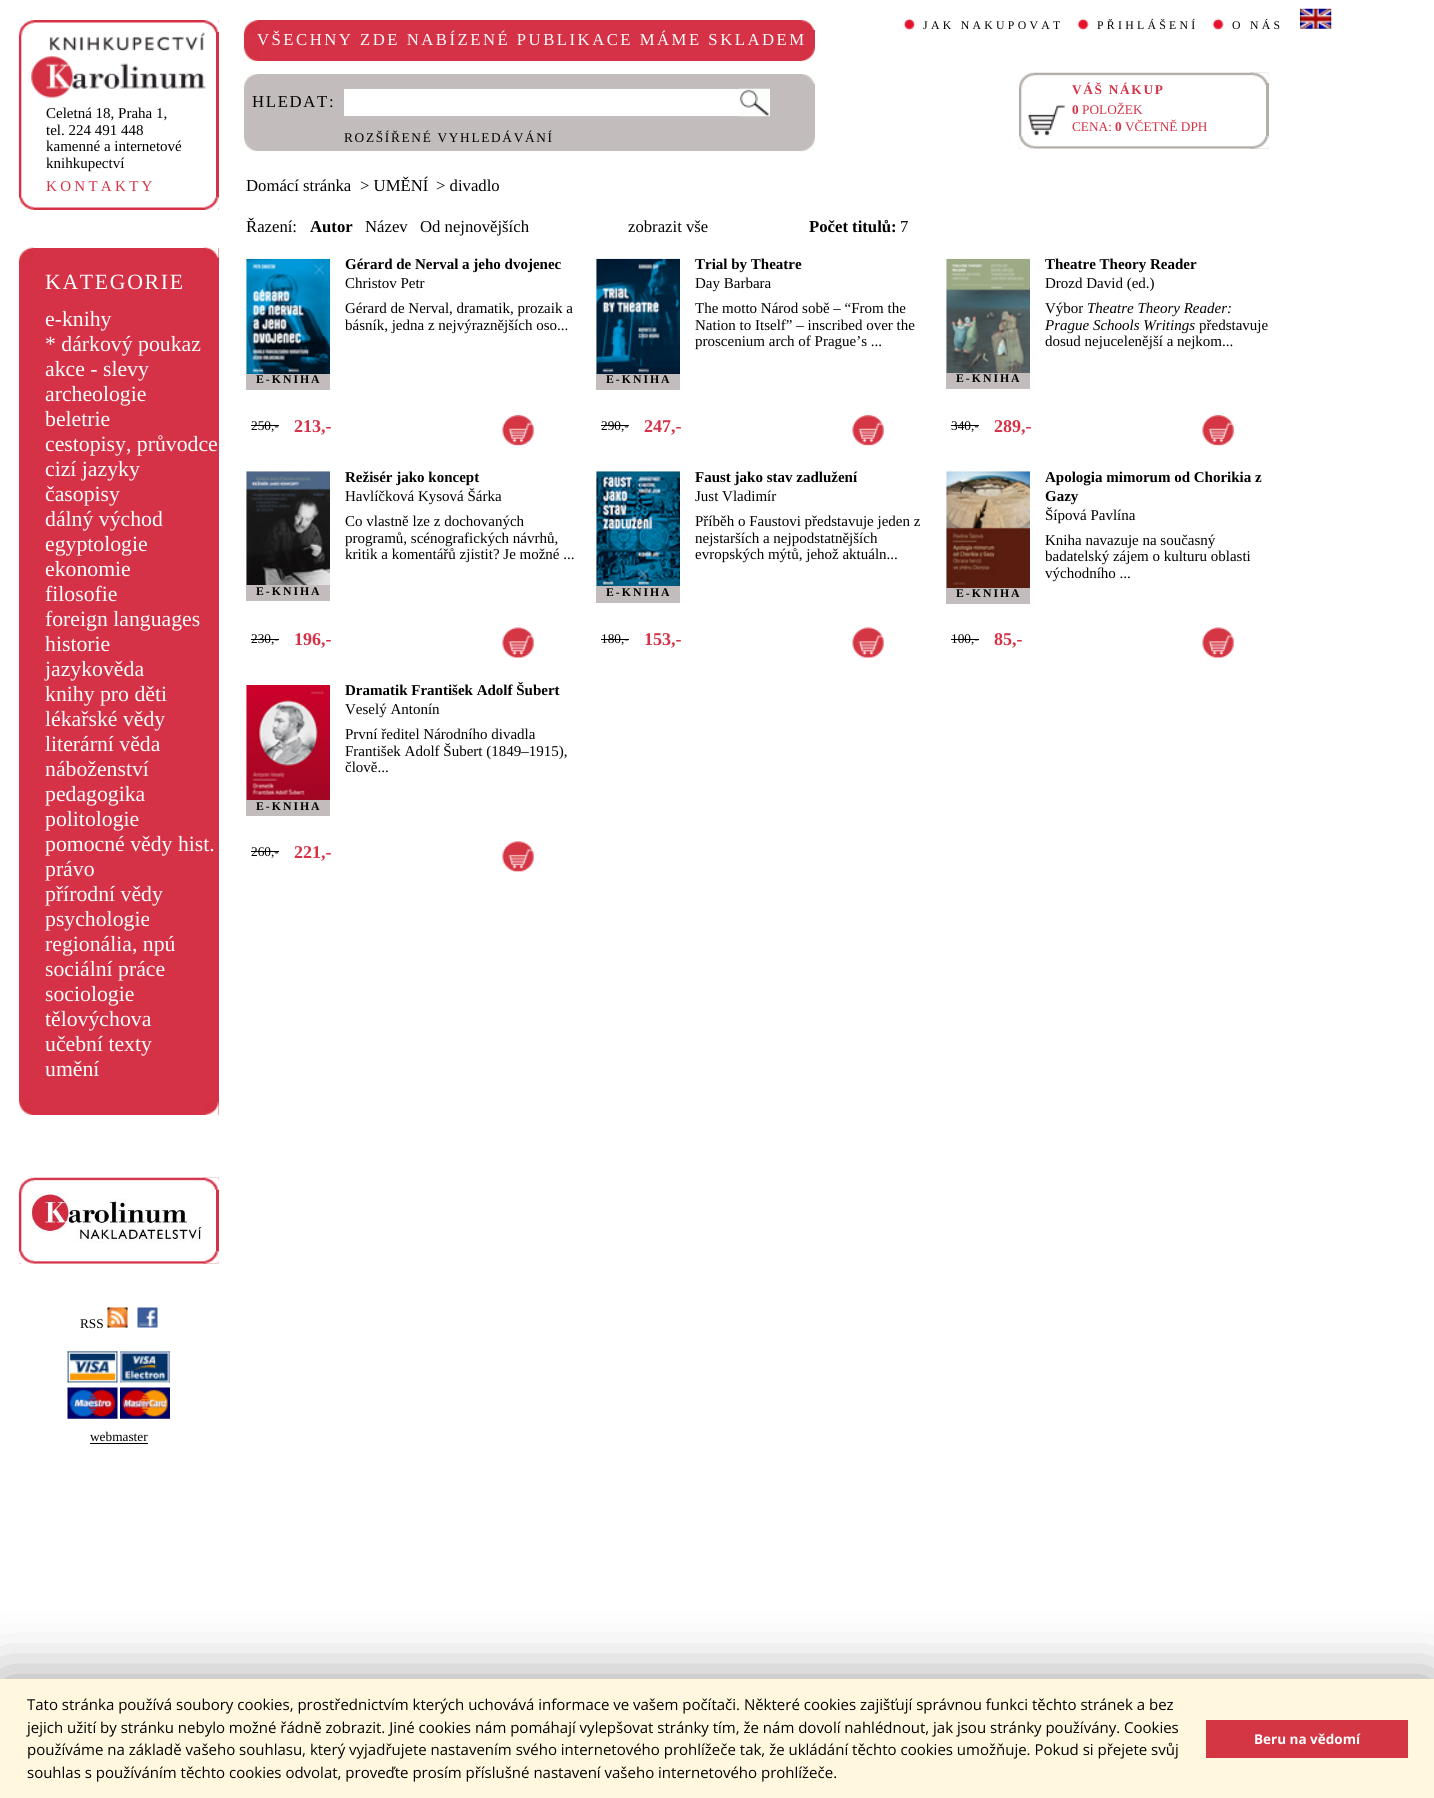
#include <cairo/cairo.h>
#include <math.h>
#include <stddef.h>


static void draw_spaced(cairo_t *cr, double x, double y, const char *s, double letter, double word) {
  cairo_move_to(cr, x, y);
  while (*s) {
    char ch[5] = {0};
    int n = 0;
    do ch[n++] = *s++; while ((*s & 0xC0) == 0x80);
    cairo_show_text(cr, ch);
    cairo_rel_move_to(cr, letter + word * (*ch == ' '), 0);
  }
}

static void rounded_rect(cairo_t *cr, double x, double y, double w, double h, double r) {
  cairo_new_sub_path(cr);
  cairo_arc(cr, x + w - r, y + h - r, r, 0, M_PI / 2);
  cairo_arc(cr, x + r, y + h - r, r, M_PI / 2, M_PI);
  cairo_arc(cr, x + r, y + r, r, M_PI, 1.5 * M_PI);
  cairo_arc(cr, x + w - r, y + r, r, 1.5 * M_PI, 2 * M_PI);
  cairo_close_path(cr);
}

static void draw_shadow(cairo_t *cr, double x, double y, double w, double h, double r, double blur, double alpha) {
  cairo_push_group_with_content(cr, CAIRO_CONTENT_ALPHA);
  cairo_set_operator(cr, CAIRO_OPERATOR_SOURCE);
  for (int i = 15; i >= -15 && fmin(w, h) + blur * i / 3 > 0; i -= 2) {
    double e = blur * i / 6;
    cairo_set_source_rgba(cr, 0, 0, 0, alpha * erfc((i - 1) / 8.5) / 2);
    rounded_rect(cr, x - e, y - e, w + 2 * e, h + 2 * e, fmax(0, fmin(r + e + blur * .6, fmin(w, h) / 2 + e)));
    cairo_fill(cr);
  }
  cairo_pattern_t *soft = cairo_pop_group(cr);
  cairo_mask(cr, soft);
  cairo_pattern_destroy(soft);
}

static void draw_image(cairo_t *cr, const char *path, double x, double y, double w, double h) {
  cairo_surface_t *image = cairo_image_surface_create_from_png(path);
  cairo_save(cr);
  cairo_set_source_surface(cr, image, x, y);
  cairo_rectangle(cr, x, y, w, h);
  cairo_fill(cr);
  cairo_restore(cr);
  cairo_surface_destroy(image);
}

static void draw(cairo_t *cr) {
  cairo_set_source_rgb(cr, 1, 1, 1);
  cairo_paint(cr);
  draw_image(cr, "images/1.png", 18, 20, 201, 190);
  draw_image(cr, "images/2.png", 204, 20, 15, 13);
  cairo_set_source_rgb(cr, 214 / 255.0, 50 / 255.0, 71 / 255.0);
  cairo_rectangle(cr, 216, 32, 3, 166);
  cairo_fill(cr);
  draw_image(cr, "images/3.png", 31, 32, 175, 66);
  draw_image(cr, "images/4.png", 19, 197, 200, 13);
  draw_image(cr, "images/5.png", 204, 197, 15, 13);
  cairo_rectangle(cr, 19, 248, 200, 867);
  cairo_fill(cr);
  draw_image(cr, "images/6.png", 18, 1100, 15, 15);
  draw_image(cr, "images/7.png", 204, 1101, 15, 14);
  draw_image(cr, "images/8.png", 18, 247, 16, 16);
  draw_image(cr, "images/9.png", 203, 247, 16, 11);
  draw_image(cr, "images/10.png", 18, 1177, 201, 87);
  draw_image(cr, "images/11.png", 203, 1177, 16, 13);
  cairo_rectangle(cr, 216, 1190, 3, 62);
  cairo_fill(cr);
  draw_image(cr, "images/12.png", 31, 1193, 171, 50);
  draw_image(cr, "images/13.png", 19, 1251, 200, 13);
  draw_image(cr, "images/14.png", 203, 1251, 16, 13);
  draw_image(cr, "images/15.png", 107, 1307, 21, 21);
  draw_image(cr, "images/16.png", 137, 1307, 21, 21);
  draw_image(cr, "images/17.png", 67, 1351, 51, 32);
  draw_image(cr, "images/18.png", 120, 1351, 50, 32);
  draw_image(cr, "images/19.png", 67, 1387, 51, 32);
  draw_image(cr, "images/20.png", 120, 1387, 50, 32);
  cairo_set_source_rgb(cr, 0, 0, 0);
  cairo_rectangle(cr, 90, 1443, 58, 1);
  cairo_fill(cr);
  draw_image(cr, "images/21.png", 903, 18, 13, 12);
  draw_image(cr, "images/22.png", 1077, 18, 12, 12);
  draw_image(cr, "images/22.png", 1212, 18, 12, 12);
  draw_image(cr, "images/23.png", 1300, 8, 32, 21);
  cairo_set_source_rgb(cr, 214 / 255.0, 50 / 255.0, 71 / 255.0);
  cairo_rectangle(cr, 244, 20, 571, 41);
  cairo_fill(cr);
  draw_image(cr, "images/24.png", 243, 46, 16, 16);
  draw_image(cr, "images/25.png", 800, 47, 15, 15);
  draw_image(cr, "images/26.png", 243, 20, 16, 15);
  draw_image(cr, "images/27.png", 800, 20, 15, 10);
  cairo_set_source_rgb(cr, 194 / 255.0, 189 / 255.0, 188 / 255.0);
  cairo_rectangle(cr, 244, 74, 571, 77);
  cairo_fill(cr);
  draw_image(cr, "images/28.png", 244, 137, 14, 15);
  draw_image(cr, "images/29.png", 800, 137, 15, 15);
  draw_image(cr, "images/30.png", 243, 74, 15, 14);
  draw_image(cr, "images/31.png", 800, 73, 15, 11);
  draw_image(cr, "images/32.png", 738, 88, 32, 29);
  cairo_set_source_rgb(cr, 1, 1, 1);
  cairo_rectangle(cr, 344, 89, 395, 27);
  cairo_fill(cr);
  draw_image(cr, "images/33.png", 1018, 72, 251, 77);
  draw_image(cr, "images/34.png", 1250, 72, 19, 13);
  cairo_set_source_rgb(cr, 178 / 255.0, 173 / 255.0, 168 / 255.0);
  cairo_rectangle(cr, 1266, 83, 3, 55);
  cairo_fill(cr);
  draw_image(cr, "images/35.png", 1027, 105, 38, 31);
  draw_image(cr, "images/36.png", 1019, 136, 250, 13);
  draw_image(cr, "images/37.png", 1250, 136, 19, 13);
  draw_image(cr, "images/38.png", 246, 258, 84, 116);
  cairo_set_source_rgb(cr, 194 / 255.0, 189 / 255.0, 188 / 255.0);
  cairo_rectangle(cr, 246, 374, 84, 16);
  cairo_fill(cr);
  cairo_set_source_rgb(cr, 0, 0, 0);
  cairo_rectangle(cr, 251, 425, 28, 1);
  cairo_fill(cr);
  draw_image(cr, "images/39.png", 502, 415, 32, 31);
  draw_image(cr, "images/40.png", 596, 258, 84, 116);
  cairo_set_source_rgb(cr, 194 / 255.0, 189 / 255.0, 188 / 255.0);
  cairo_rectangle(cr, 596, 374, 84, 16);
  cairo_fill(cr);
  cairo_set_source_rgb(cr, 0, 0, 0);
  cairo_rectangle(cr, 601, 425, 28, 1);
  cairo_fill(cr);
  draw_image(cr, "images/39.png", 852, 415, 32, 31);
  draw_image(cr, "images/41.png", 946, 258, 84, 115);
  cairo_set_source_rgb(cr, 194 / 255.0, 189 / 255.0, 188 / 255.0);
  cairo_rectangle(cr, 946, 373, 84, 16);
  cairo_fill(cr);
  cairo_set_source_rgb(cr, 0, 0, 0);
  cairo_rectangle(cr, 951, 425, 28, 1);
  cairo_fill(cr);
  draw_image(cr, "images/39.png", 1202, 415, 32, 31);
  draw_image(cr, "images/42.png", 246, 471, 84, 114);
  cairo_set_source_rgb(cr, 194 / 255.0, 189 / 255.0, 188 / 255.0);
  cairo_rectangle(cr, 246, 585, 84, 16);
  cairo_fill(cr);
  cairo_set_source_rgb(cr, 0, 0, 0);
  cairo_rectangle(cr, 251, 639, 28, 1);
  cairo_fill(cr);
  draw_image(cr, "images/43.png", 502, 627, 32, 31);
  draw_image(cr, "images/44.png", 596, 471, 84, 115);
  cairo_set_source_rgb(cr, 194 / 255.0, 189 / 255.0, 188 / 255.0);
  cairo_rectangle(cr, 596, 586, 84, 17);
  cairo_fill(cr);
  cairo_set_source_rgb(cr, 0, 0, 0);
  cairo_rectangle(cr, 601, 639, 28, 1);
  cairo_fill(cr);
  draw_image(cr, "images/43.png", 852, 627, 32, 31);
  draw_image(cr, "images/45.png", 946, 471, 84, 117);
  cairo_set_source_rgb(cr, 194 / 255.0, 189 / 255.0, 188 / 255.0);
  cairo_rectangle(cr, 946, 588, 84, 16);
  cairo_fill(cr);
  cairo_set_source_rgb(cr, 0, 0, 0);
  cairo_rectangle(cr, 951, 639, 28, 1);
  cairo_fill(cr);
  draw_image(cr, "images/43.png", 1202, 627, 32, 31);
  draw_image(cr, "images/46.png", 246, 685, 84, 115);
  cairo_set_source_rgb(cr, 194 / 255.0, 189 / 255.0, 188 / 255.0);
  cairo_rectangle(cr, 246, 800, 84, 16);
  cairo_fill(cr);
  cairo_set_source_rgb(cr, 0, 0, 0);
  cairo_rectangle(cr, 251, 851, 28, 1);
  cairo_fill(cr);
  draw_image(cr, "images/47.png", 502, 841, 32, 31);
  cairo_set_source_rgb(cr, 0, 0, 0);
  draw_shadow(cr, 0, 1679, 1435, 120, 0, 31, 0.38);
  cairo_set_source_rgb(cr, 1, 248 / 255.0, 222 / 255.0);
  cairo_rectangle(cr, 0, 1679, 1434, 119);
  cairo_fill(cr);
  cairo_set_source_rgb(cr, 212 / 255.0, 54 / 255.0, 68 / 255.0);
  cairo_rectangle(cr, 1206, 1720, 202, 38);
  cairo_fill(cr);
  cairo_select_font_face(cr, "Liberation Serif", CAIRO_FONT_SLANT_NORMAL, CAIRO_FONT_WEIGHT_NORMAL);
  cairo_set_font_size(cr, 15);
  cairo_set_source_rgb(cr, 0, 0, 0);
  cairo_move_to(cr, 46, 118);
  cairo_show_text(cr, "Celetná 18, Praha 1,");
  cairo_move_to(cr, 46, 135);
  cairo_show_text(cr, "tel. 224 491 448");
  cairo_move_to(cr, 46, 151);
  cairo_show_text(cr, "kamenné a internetové");
  cairo_move_to(cr, 46, 168);
  cairo_show_text(cr, "knihkupectví");
  cairo_set_source_rgb(cr, 214 / 255.0, 50 / 255.0, 71 / 255.0);
  draw_spaced(cr, 46, 191, "KONTAKTY", 3.3, 0);
  cairo_set_font_size(cr, 21.75);
  cairo_set_source_rgb(cr, 1, 1, 1);
  draw_spaced(cr, 45, 289, "KATEGORIE", 1.7, 0);
  cairo_move_to(cr, 45, 326);
  cairo_show_text(cr, "e-knihy");
  cairo_move_to(cr, 45, 351);
  cairo_show_text(cr, "* dárkový poukaz");
  cairo_move_to(cr, 45, 376);
  cairo_show_text(cr, "akce - slevy");
  cairo_move_to(cr, 45, 401);
  cairo_show_text(cr, "archeologie");
  cairo_move_to(cr, 45, 426);
  cairo_show_text(cr, "beletrie");
  cairo_move_to(cr, 45, 451);
  cairo_show_text(cr, "cestopisy, průvodce");
  cairo_move_to(cr, 45, 476);
  cairo_show_text(cr, "cizí jazyky");
  cairo_move_to(cr, 45, 501);
  cairo_show_text(cr, "časopisy");
  cairo_move_to(cr, 45, 526);
  cairo_show_text(cr, "dálný východ");
  cairo_move_to(cr, 45, 551);
  cairo_show_text(cr, "egyptologie");
  cairo_move_to(cr, 45, 576);
  cairo_show_text(cr, "ekonomie");
  cairo_move_to(cr, 45, 601);
  cairo_show_text(cr, "filosofie");
  cairo_move_to(cr, 45, 626);
  cairo_show_text(cr, "foreign languages");
  cairo_move_to(cr, 45, 651);
  cairo_show_text(cr, "historie");
  cairo_move_to(cr, 45, 676);
  cairo_show_text(cr, "jazykověda");
  cairo_move_to(cr, 45, 701);
  cairo_show_text(cr, "knihy pro děti");
  cairo_move_to(cr, 45, 726);
  cairo_show_text(cr, "lékařské vědy");
  cairo_move_to(cr, 45, 751);
  cairo_show_text(cr, "literární věda");
  cairo_move_to(cr, 45, 776);
  cairo_show_text(cr, "náboženství");
  cairo_move_to(cr, 45, 801);
  cairo_show_text(cr, "pedagogika");
  cairo_move_to(cr, 45, 826);
  cairo_show_text(cr, "politologie");
  cairo_move_to(cr, 45, 851);
  cairo_show_text(cr, "pomocné vědy hist.");
  cairo_move_to(cr, 45, 876);
  cairo_show_text(cr, "právo");
  cairo_move_to(cr, 45, 901);
  cairo_show_text(cr, "přírodní vědy");
  cairo_move_to(cr, 45, 926);
  cairo_show_text(cr, "psychologie");
  cairo_move_to(cr, 45, 951);
  cairo_show_text(cr, "regionália, npú");
  cairo_move_to(cr, 45, 976);
  cairo_show_text(cr, "sociální práce");
  cairo_move_to(cr, 45, 1001);
  cairo_show_text(cr, "sociologie");
  cairo_move_to(cr, 45, 1026);
  cairo_show_text(cr, "tělovýchova");
  cairo_move_to(cr, 45, 1051);
  cairo_show_text(cr, "učební texty");
  cairo_move_to(cr, 45, 1076);
  cairo_show_text(cr, "umění");
  cairo_set_font_size(cr, 13.3);
  cairo_set_source_rgb(cr, 0, 0, 0);
  cairo_move_to(cr, 80, 1328);
  cairo_show_text(cr, "RSS");
  cairo_move_to(cr, 90, 1441);
  cairo_show_text(cr, "webmaster");
  cairo_set_font_size(cr, 11.75);
  draw_spaced(cr, 923, 29, "JAK NAKUPOVAT", 3.3, 0);
  draw_spaced(cr, 1097, 29, "PŘIHLÁŠENÍ", 3.3, 0);
  draw_spaced(cr, 1232, 29, "O NÁS", 3.3, 0);
  cairo_set_font_size(cr, 16.7);
  cairo_set_source_rgb(cr, 1, 1, 1);
  draw_spaced(cr, 257, 45, "VŠECHNY ZDE NABÍZENÉ PUBLIKACE MÁME SKLADEM", 2.5, 0);
  cairo_set_source_rgb(cr, 0, 0, 0);
  draw_spaced(cr, 252, 107, "HLEDAT:", 1.7, 0);
  cairo_set_font_size(cr, 13.3);
  draw_spaced(cr, 344, 142, "ROZŠÍŘENÉ VYHLEDÁVÁNÍ", 1.7, 0);
  cairo_select_font_face(cr, "Liberation Serif", CAIRO_FONT_SLANT_NORMAL, CAIRO_FONT_WEIGHT_BOLD);
  cairo_set_source_rgb(cr, 214 / 255.0, 50 / 255.0, 71 / 255.0);
  draw_spaced(cr, 1072, 94, "VÁŠ NÁKUP", 1.7, 0);
  cairo_move_to(cr, 1072, 114);
  cairo_show_text(cr, "0");
  cairo_select_font_face(cr, "Liberation Serif", CAIRO_FONT_SLANT_NORMAL, CAIRO_FONT_WEIGHT_NORMAL);
  cairo_move_to(cr, 1082, 114);
  cairo_show_text(cr, "POLOŽEK");
  cairo_move_to(cr, 1072, 131);
  cairo_show_text(cr, "CENA:");
  cairo_select_font_face(cr, "Liberation Serif", CAIRO_FONT_SLANT_NORMAL, CAIRO_FONT_WEIGHT_BOLD);
  cairo_move_to(cr, 1115, 131);
  cairo_show_text(cr, "0");
  cairo_select_font_face(cr, "Liberation Serif", CAIRO_FONT_SLANT_NORMAL, CAIRO_FONT_WEIGHT_NORMAL);
  cairo_move_to(cr, 1125, 131);
  cairo_show_text(cr, "VČETNĚ DPH");
  cairo_set_font_size(cr, 16.7);
  cairo_set_source_rgb(cr, 0, 0, 0);
  cairo_move_to(cr, 246, 191);
  cairo_show_text(cr, "Domácí stránka");
  cairo_move_to(cr, 360, 191);
  cairo_show_text(cr, "> UMĚNÍ");
  cairo_move_to(cr, 436, 191);
  cairo_show_text(cr, "> divadlo");
  cairo_move_to(cr, 246, 232);
  cairo_show_text(cr, "Řazení:");
  cairo_select_font_face(cr, "Liberation Serif", CAIRO_FONT_SLANT_NORMAL, CAIRO_FONT_WEIGHT_BOLD);
  cairo_move_to(cr, 310, 232);
  cairo_show_text(cr, "Autor");
  cairo_select_font_face(cr, "Liberation Serif", CAIRO_FONT_SLANT_NORMAL, CAIRO_FONT_WEIGHT_NORMAL);
  cairo_move_to(cr, 365, 232);
  cairo_show_text(cr, "Název");
  cairo_move_to(cr, 420, 232);
  cairo_show_text(cr, "Od nejnovějších");
  cairo_move_to(cr, 628, 232);
  cairo_show_text(cr, "zobrazit vše");
  cairo_select_font_face(cr, "Liberation Serif", CAIRO_FONT_SLANT_NORMAL, CAIRO_FONT_WEIGHT_BOLD);
  cairo_move_to(cr, 809, 232);
  cairo_show_text(cr, "Počet titulů:");
  cairo_select_font_face(cr, "Liberation Serif", CAIRO_FONT_SLANT_NORMAL, CAIRO_FONT_WEIGHT_NORMAL);
  cairo_move_to(cr, 900, 232);
  cairo_show_text(cr, "7");
  cairo_select_font_face(cr, "Liberation Serif", CAIRO_FONT_SLANT_NORMAL, CAIRO_FONT_WEIGHT_BOLD);
  cairo_set_font_size(cr, 15);
  cairo_move_to(cr, 345, 269);
  cairo_show_text(cr, "Gérard de Nerval a jeho dvojenec");
  cairo_select_font_face(cr, "Liberation Serif", CAIRO_FONT_SLANT_NORMAL, CAIRO_FONT_WEIGHT_NORMAL);
  cairo_move_to(cr, 345, 288);
  cairo_show_text(cr, "Christov Petr");
  cairo_move_to(cr, 345, 313);
  cairo_show_text(cr, "Gérard de Nerval, dramatik, prozaik a");
  cairo_move_to(cr, 345, 330);
  cairo_show_text(cr, "básník, jedna z nejvýraznějších oso...");
  cairo_select_font_face(cr, "Liberation Serif", CAIRO_FONT_SLANT_NORMAL, CAIRO_FONT_WEIGHT_BOLD);
  cairo_set_font_size(cr, 11.75);
  draw_spaced(cr, 256, 383, "E-KNIHA", 2, 0);
  cairo_select_font_face(cr, "Liberation Serif", CAIRO_FONT_SLANT_NORMAL, CAIRO_FONT_WEIGHT_NORMAL);
  cairo_set_font_size(cr, 13.3);
  cairo_move_to(cr, 251, 430);
  cairo_show_text(cr, "250,-");
  cairo_select_font_face(cr, "Liberation Serif", CAIRO_FONT_SLANT_NORMAL, CAIRO_FONT_WEIGHT_BOLD);
  cairo_set_font_size(cr, 18);
  cairo_set_source_rgb(cr, 214 / 255.0, 50 / 255.0, 71 / 255.0);
  cairo_move_to(cr, 294, 432);
  cairo_show_text(cr, "213,-");
  cairo_set_font_size(cr, 15);
  cairo_set_source_rgb(cr, 0, 0, 0);
  cairo_move_to(cr, 695, 269);
  cairo_show_text(cr, "Trial by Theatre");
  cairo_select_font_face(cr, "Liberation Serif", CAIRO_FONT_SLANT_NORMAL, CAIRO_FONT_WEIGHT_NORMAL);
  cairo_move_to(cr, 695, 288);
  cairo_show_text(cr, "Day Barbara");
  cairo_move_to(cr, 695, 313);
  cairo_show_text(cr, "The motto Národ sobě – “From the");
  cairo_move_to(cr, 695, 330);
  cairo_show_text(cr, "Nation to Itself” – inscribed over the");
  cairo_move_to(cr, 695, 346);
  cairo_show_text(cr, "proscenium arch of Prague’s ...");
  cairo_select_font_face(cr, "Liberation Serif", CAIRO_FONT_SLANT_NORMAL, CAIRO_FONT_WEIGHT_BOLD);
  cairo_set_font_size(cr, 11.75);
  draw_spaced(cr, 606, 383, "E-KNIHA", 2, 0);
  cairo_select_font_face(cr, "Liberation Serif", CAIRO_FONT_SLANT_NORMAL, CAIRO_FONT_WEIGHT_NORMAL);
  cairo_set_font_size(cr, 13.3);
  cairo_move_to(cr, 601, 430);
  cairo_show_text(cr, "290,-");
  cairo_select_font_face(cr, "Liberation Serif", CAIRO_FONT_SLANT_NORMAL, CAIRO_FONT_WEIGHT_BOLD);
  cairo_set_font_size(cr, 18);
  cairo_set_source_rgb(cr, 214 / 255.0, 50 / 255.0, 71 / 255.0);
  cairo_move_to(cr, 644, 432);
  cairo_show_text(cr, "247,-");
  cairo_set_font_size(cr, 15);
  cairo_set_source_rgb(cr, 0, 0, 0);
  cairo_move_to(cr, 1045, 269);
  cairo_show_text(cr, "Theatre Theory Reader");
  cairo_select_font_face(cr, "Liberation Serif", CAIRO_FONT_SLANT_NORMAL, CAIRO_FONT_WEIGHT_NORMAL);
  cairo_move_to(cr, 1045, 288);
  cairo_show_text(cr, "Drozd David (ed.)");
  cairo_move_to(cr, 1045, 313);
  cairo_show_text(cr, "Výbor");
  cairo_select_font_face(cr, "Liberation Serif", CAIRO_FONT_SLANT_ITALIC, CAIRO_FONT_WEIGHT_NORMAL);
  cairo_move_to(cr, 1087, 313);
  cairo_show_text(cr, "Theatre Theory Reader:");
  cairo_move_to(cr, 1045, 330);
  cairo_show_text(cr, "Prague Schools Writings");
  cairo_select_font_face(cr, "Liberation Serif", CAIRO_FONT_SLANT_NORMAL, CAIRO_FONT_WEIGHT_NORMAL);
  cairo_move_to(cr, 1199, 330);
  cairo_show_text(cr, "představuje");
  cairo_move_to(cr, 1045, 346);
  cairo_show_text(cr, "dosud nejucelenější a nejkom...");
  cairo_select_font_face(cr, "Liberation Serif", CAIRO_FONT_SLANT_NORMAL, CAIRO_FONT_WEIGHT_BOLD);
  cairo_set_font_size(cr, 11.75);
  draw_spaced(cr, 956, 382, "E-KNIHA", 2, 0);
  cairo_select_font_face(cr, "Liberation Serif", CAIRO_FONT_SLANT_NORMAL, CAIRO_FONT_WEIGHT_NORMAL);
  cairo_set_font_size(cr, 13.3);
  cairo_move_to(cr, 951, 430);
  cairo_show_text(cr, "340,-");
  cairo_select_font_face(cr, "Liberation Serif", CAIRO_FONT_SLANT_NORMAL, CAIRO_FONT_WEIGHT_BOLD);
  cairo_set_font_size(cr, 18);
  cairo_set_source_rgb(cr, 214 / 255.0, 50 / 255.0, 71 / 255.0);
  cairo_move_to(cr, 994, 432);
  cairo_show_text(cr, "289,-");
  cairo_set_font_size(cr, 15);
  cairo_set_source_rgb(cr, 0, 0, 0);
  cairo_move_to(cr, 345, 482);
  cairo_show_text(cr, "Režisér jako koncept");
  cairo_select_font_face(cr, "Liberation Serif", CAIRO_FONT_SLANT_NORMAL, CAIRO_FONT_WEIGHT_NORMAL);
  cairo_move_to(cr, 345, 501);
  cairo_show_text(cr, "Havlíčková Kysová Šárka");
  cairo_move_to(cr, 345, 526);
  cairo_show_text(cr, "Co vlastně lze z dochovaných");
  cairo_move_to(cr, 345, 543);
  cairo_show_text(cr, "programů, scénografických návrhů,");
  cairo_move_to(cr, 345, 559);
  cairo_show_text(cr, "kritik a komentářů zjistit? Je možné ...");
  cairo_select_font_face(cr, "Liberation Serif", CAIRO_FONT_SLANT_NORMAL, CAIRO_FONT_WEIGHT_BOLD);
  cairo_set_font_size(cr, 11.75);
  draw_spaced(cr, 256, 595, "E-KNIHA", 2, 0);
  cairo_select_font_face(cr, "Liberation Serif", CAIRO_FONT_SLANT_NORMAL, CAIRO_FONT_WEIGHT_NORMAL);
  cairo_set_font_size(cr, 13.3);
  cairo_move_to(cr, 251, 643);
  cairo_show_text(cr, "230,-");
  cairo_select_font_face(cr, "Liberation Serif", CAIRO_FONT_SLANT_NORMAL, CAIRO_FONT_WEIGHT_BOLD);
  cairo_set_font_size(cr, 18);
  cairo_set_source_rgb(cr, 214 / 255.0, 50 / 255.0, 71 / 255.0);
  cairo_move_to(cr, 294, 645);
  cairo_show_text(cr, "196,-");
  cairo_set_font_size(cr, 15);
  cairo_set_source_rgb(cr, 0, 0, 0);
  cairo_move_to(cr, 695, 482);
  cairo_show_text(cr, "Faust jako stav zadlužení");
  cairo_select_font_face(cr, "Liberation Serif", CAIRO_FONT_SLANT_NORMAL, CAIRO_FONT_WEIGHT_NORMAL);
  cairo_move_to(cr, 695, 501);
  cairo_show_text(cr, "Just Vladimír");
  cairo_move_to(cr, 695, 526);
  cairo_show_text(cr, "Příběh o Faustovi představuje jeden z");
  cairo_move_to(cr, 695, 543);
  cairo_show_text(cr, "nejstarších a nejpodstatnějších");
  cairo_move_to(cr, 695, 559);
  cairo_show_text(cr, "evropských mýtů, jehož aktuáln...");
  cairo_select_font_face(cr, "Liberation Serif", CAIRO_FONT_SLANT_NORMAL, CAIRO_FONT_WEIGHT_BOLD);
  cairo_set_font_size(cr, 11.75);
  draw_spaced(cr, 606, 596, "E-KNIHA", 2, 0);
  cairo_select_font_face(cr, "Liberation Serif", CAIRO_FONT_SLANT_NORMAL, CAIRO_FONT_WEIGHT_NORMAL);
  cairo_set_font_size(cr, 13.3);
  cairo_move_to(cr, 601, 643);
  cairo_show_text(cr, "180,-");
  cairo_select_font_face(cr, "Liberation Serif", CAIRO_FONT_SLANT_NORMAL, CAIRO_FONT_WEIGHT_BOLD);
  cairo_set_font_size(cr, 18);
  cairo_set_source_rgb(cr, 214 / 255.0, 50 / 255.0, 71 / 255.0);
  cairo_move_to(cr, 644, 645);
  cairo_show_text(cr, "153,-");
  cairo_set_font_size(cr, 15);
  cairo_set_source_rgb(cr, 0, 0, 0);
  cairo_move_to(cr, 1045, 482);
  cairo_show_text(cr, "Apologia mimorum od Chorikia z");
  cairo_move_to(cr, 1045, 501);
  cairo_show_text(cr, "Gazy");
  cairo_select_font_face(cr, "Liberation Serif", CAIRO_FONT_SLANT_NORMAL, CAIRO_FONT_WEIGHT_NORMAL);
  cairo_move_to(cr, 1045, 520);
  cairo_show_text(cr, "Šípová Pavlína");
  cairo_move_to(cr, 1045, 545);
  cairo_show_text(cr, "Kniha navazuje na současný");
  cairo_move_to(cr, 1045, 561);
  cairo_show_text(cr, "badatelský zájem o kulturu oblasti");
  cairo_move_to(cr, 1045, 578);
  cairo_show_text(cr, "východního ...");
  cairo_select_font_face(cr, "Liberation Serif", CAIRO_FONT_SLANT_NORMAL, CAIRO_FONT_WEIGHT_BOLD);
  cairo_set_font_size(cr, 11.75);
  draw_spaced(cr, 956, 597, "E-KNIHA", 2, 0);
  cairo_select_font_face(cr, "Liberation Serif", CAIRO_FONT_SLANT_NORMAL, CAIRO_FONT_WEIGHT_NORMAL);
  cairo_set_font_size(cr, 13.3);
  cairo_move_to(cr, 951, 643);
  cairo_show_text(cr, "100,-");
  cairo_select_font_face(cr, "Liberation Serif", CAIRO_FONT_SLANT_NORMAL, CAIRO_FONT_WEIGHT_BOLD);
  cairo_set_font_size(cr, 18);
  cairo_set_source_rgb(cr, 214 / 255.0, 50 / 255.0, 71 / 255.0);
  cairo_move_to(cr, 994, 645);
  cairo_show_text(cr, "85,-");
  cairo_set_font_size(cr, 15);
  cairo_set_source_rgb(cr, 0, 0, 0);
  cairo_move_to(cr, 345, 695);
  cairo_show_text(cr, "Dramatik František Adolf Šubert");
  cairo_select_font_face(cr, "Liberation Serif", CAIRO_FONT_SLANT_NORMAL, CAIRO_FONT_WEIGHT_NORMAL);
  cairo_move_to(cr, 345, 714);
  cairo_show_text(cr, "Veselý Antonín");
  cairo_move_to(cr, 345, 739);
  cairo_show_text(cr, "První ředitel Národního divadla");
  cairo_move_to(cr, 345, 756);
  cairo_show_text(cr, "František Adolf Šubert (1849–1915),");
  cairo_move_to(cr, 345, 772);
  cairo_show_text(cr, "člově...");
  cairo_select_font_face(cr, "Liberation Serif", CAIRO_FONT_SLANT_NORMAL, CAIRO_FONT_WEIGHT_BOLD);
  cairo_set_font_size(cr, 11.75);
  draw_spaced(cr, 256, 810, "E-KNIHA", 2, 0);
  cairo_select_font_face(cr, "Liberation Serif", CAIRO_FONT_SLANT_NORMAL, CAIRO_FONT_WEIGHT_NORMAL);
  cairo_set_font_size(cr, 13.3);
  cairo_move_to(cr, 251, 856);
  cairo_show_text(cr, "260,-");
  cairo_select_font_face(cr, "Liberation Serif", CAIRO_FONT_SLANT_NORMAL, CAIRO_FONT_WEIGHT_BOLD);
  cairo_set_font_size(cr, 18);
  cairo_set_source_rgb(cr, 214 / 255.0, 50 / 255.0, 71 / 255.0);
  cairo_move_to(cr, 294, 858);
  cairo_show_text(cr, "221,-");
  cairo_select_font_face(cr, "Open Sans", CAIRO_FONT_SLANT_NORMAL, CAIRO_FONT_WEIGHT_NORMAL);
  cairo_set_font_size(cr, 15);
  cairo_set_source_rgb(cr, 0, 0, 0);
  cairo_move_to(cr, 27, 1710);
  cairo_show_text(cr, "Tato stránka používá soubory cookies, prostřednictvím kterých uchovává informace ve vašem počítači. Některé cookies zajišťují správnou funkci těchto stránek a bez");
  cairo_move_to(cr, 27, 1733);
  cairo_show_text(cr, "jejich užití by stránku nebylo možné řádně zobrazit. Jiné cookies nám pomáhají vylepšovat stránky tím, že nám dovolí nahlédnout, jak jsou stránky používány. Cookies");
  cairo_move_to(cr, 27, 1755);
  cairo_show_text(cr, "používáme na základě vašeho souhlasu, který vyjadřujete nastavením svého internetového prohlížeče tak, že ukládání těchto cookies umožňuje. Pokud si přejete svůj");
  cairo_move_to(cr, 27, 1778);
  cairo_show_text(cr, "souhlas s používáním těchto cookies odvolat, proveďte prosím příslušné nastavení vašeho internetového prohlížeče.");
  cairo_select_font_face(cr, "Open Sans", CAIRO_FONT_SLANT_NORMAL, CAIRO_FONT_WEIGHT_BOLD);
  cairo_set_font_size(cr, 13.5);
  cairo_set_source_rgb(cr, 1, 1, 1);
  cairo_move_to(cr, 1254, 1744);
  cairo_show_text(cr, "Beru na vědomí");
}

int main(void) {
  cairo_surface_t *surface = cairo_image_surface_create(CAIRO_FORMAT_RGB24, 1434, 1798);
  cairo_t *cr = cairo_create(surface);
  cairo_font_options_t *options = cairo_font_options_create();
  cairo_font_options_set_hint_metrics(options, CAIRO_HINT_METRICS_OFF);
  cairo_font_options_set_hint_style(options, CAIRO_HINT_STYLE_NONE);
  cairo_set_font_options(cr, options);
  cairo_set_miter_limit(cr, 4);
  draw(cr);
  cairo_surface_write_to_png(surface, "out.png");
  cairo_font_options_destroy(options);
  cairo_destroy(cr);
  cairo_surface_destroy(surface);
  return 0;
}
